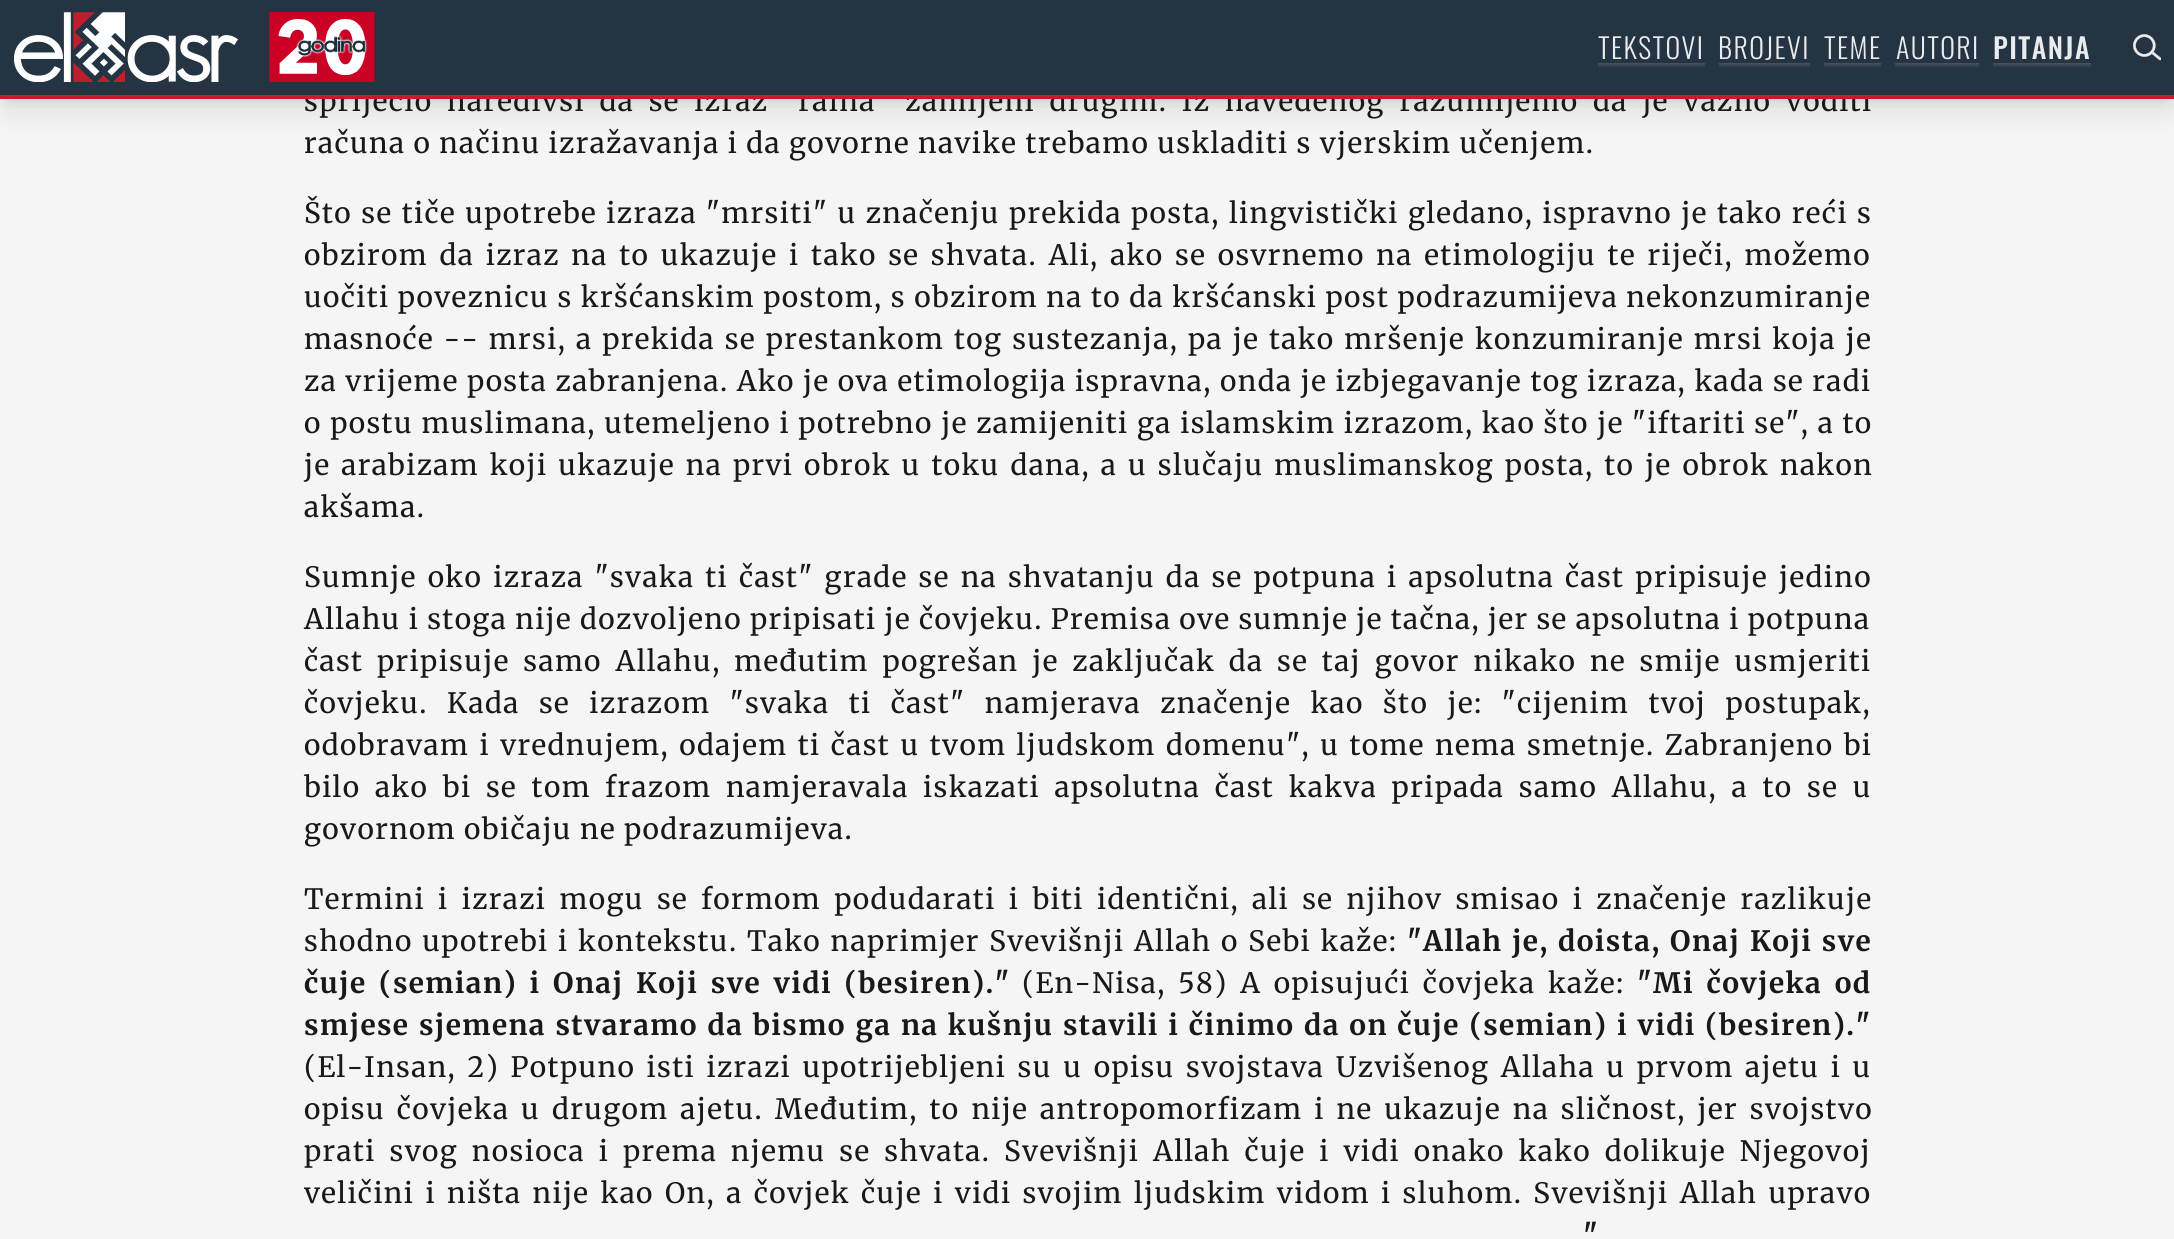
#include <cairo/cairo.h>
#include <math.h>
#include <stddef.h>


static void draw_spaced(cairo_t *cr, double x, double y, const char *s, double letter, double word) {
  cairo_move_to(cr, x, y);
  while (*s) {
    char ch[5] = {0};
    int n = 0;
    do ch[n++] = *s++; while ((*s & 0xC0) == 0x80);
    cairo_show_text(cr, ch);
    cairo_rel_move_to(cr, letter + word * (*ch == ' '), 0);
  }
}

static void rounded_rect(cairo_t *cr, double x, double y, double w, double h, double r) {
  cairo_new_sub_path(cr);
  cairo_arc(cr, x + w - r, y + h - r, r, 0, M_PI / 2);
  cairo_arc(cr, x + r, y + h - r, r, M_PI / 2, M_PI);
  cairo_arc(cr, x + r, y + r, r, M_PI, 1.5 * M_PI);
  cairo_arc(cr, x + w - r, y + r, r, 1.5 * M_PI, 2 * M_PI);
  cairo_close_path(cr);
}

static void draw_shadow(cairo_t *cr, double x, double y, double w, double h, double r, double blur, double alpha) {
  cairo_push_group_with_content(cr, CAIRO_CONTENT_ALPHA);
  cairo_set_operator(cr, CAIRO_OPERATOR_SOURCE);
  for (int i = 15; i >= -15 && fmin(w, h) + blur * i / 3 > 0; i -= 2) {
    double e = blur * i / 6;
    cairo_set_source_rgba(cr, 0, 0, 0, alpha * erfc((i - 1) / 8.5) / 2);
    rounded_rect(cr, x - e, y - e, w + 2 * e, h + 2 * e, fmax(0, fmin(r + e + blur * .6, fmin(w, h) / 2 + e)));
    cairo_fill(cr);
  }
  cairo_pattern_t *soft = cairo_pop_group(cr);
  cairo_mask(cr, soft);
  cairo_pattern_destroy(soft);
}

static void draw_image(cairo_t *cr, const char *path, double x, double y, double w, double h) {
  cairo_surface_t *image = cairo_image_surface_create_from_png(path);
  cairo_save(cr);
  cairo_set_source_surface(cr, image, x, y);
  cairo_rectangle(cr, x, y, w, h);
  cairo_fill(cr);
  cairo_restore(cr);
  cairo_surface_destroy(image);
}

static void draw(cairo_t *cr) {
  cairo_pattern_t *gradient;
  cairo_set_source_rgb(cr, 245 / 255.0, 245 / 255.0, 245 / 255.0);
  cairo_paint(cr);
  cairo_set_source_rgb(cr, 0, 0, 0);
  draw_shadow(cr, 4, 11, 2168, 91, 0, 5, 0.05);
  draw_shadow(cr, 5, 23, 2165, 87, 0, 13, 0.1);
  cairo_select_font_face(cr, "Merriweather", CAIRO_FONT_SLANT_NORMAL, CAIRO_FONT_WEIGHT_NORMAL);
  cairo_set_font_size(cr, 28);
  cairo_set_source_rgb(cr, 25 / 255.0, 25 / 255.0, 25 / 255.0);
  draw_spaced(cr, 304, 111, "spriječio naredivši da se izraz \"raina\" zamijeni drugim. Iz navedenog razumijemo da je važno voditi", 1.4, 6.5);
  cairo_set_source_rgb(cr, 37 / 255.0, 52 / 255.0, 67 / 255.0);
  cairo_rectangle(cr, 0, 0, 2174, 95);
  cairo_fill(cr);
  draw_image(cr, "images/3.png", 2133, 34, 28, 27);
  gradient = cairo_pattern_create_linear(2042, 68, 2042, 61);
  cairo_pattern_add_color_stop_rgba(gradient, 0, 37 / 255.0, 52 / 255.0, 67 / 255.0, 1);
  cairo_pattern_add_color_stop_rgba(gradient, 0.35, 51 / 255.0, 66 / 255.0, 81 / 255.0, 1);
  cairo_pattern_add_color_stop_rgba(gradient, 0.7, 71 / 255.0, 85 / 255.0, 99 / 255.0, 1);
  cairo_pattern_add_color_stop_rgba(gradient, 0.71, 37 / 255.0, 52 / 255.0, 67 / 255.0, 1);
  cairo_pattern_add_color_stop_rgba(gradient, 1, 37 / 255.0, 52 / 255.0, 67 / 255.0, 1);
  cairo_set_source(cr, gradient);
  cairo_pattern_destroy(gradient);
  cairo_rectangle(cr, 1993, 63, 98, 5);
  cairo_fill(cr);
  cairo_select_font_face(cr, "Oswald Medium", CAIRO_FONT_SLANT_NORMAL, CAIRO_FONT_WEIGHT_NORMAL);
  cairo_set_source_rgb(cr, 233 / 255.0, 235 / 255.0, 236 / 255.0);
  draw_spaced(cr, 1993, 59, "PITANJA", 1.4, 0);
  gradient = cairo_pattern_create_linear(1937, 68, 1937, 61);
  cairo_pattern_add_color_stop_rgba(gradient, 0, 37 / 255.0, 52 / 255.0, 67 / 255.0, 1);
  cairo_pattern_add_color_stop_rgba(gradient, 0.35, 51 / 255.0, 66 / 255.0, 81 / 255.0, 1);
  cairo_pattern_add_color_stop_rgba(gradient, 0.7, 71 / 255.0, 85 / 255.0, 99 / 255.0, 1);
  cairo_pattern_add_color_stop_rgba(gradient, 0.71, 37 / 255.0, 52 / 255.0, 67 / 255.0, 1);
  cairo_pattern_add_color_stop_rgba(gradient, 1, 37 / 255.0, 52 / 255.0, 67 / 255.0, 1);
  cairo_set_source(cr, gradient);
  cairo_pattern_destroy(gradient);
  cairo_rectangle(cr, 1895, 63, 84, 5);
  cairo_fill(cr);
  cairo_select_font_face(cr, "Oswald Light", CAIRO_FONT_SLANT_NORMAL, CAIRO_FONT_WEIGHT_NORMAL);
  cairo_set_source_rgb(cr, 233 / 255.0, 235 / 255.0, 236 / 255.0);
  draw_spaced(cr, 1896, 59, "AUTORI", 1.4, 0);
  gradient = cairo_pattern_create_linear(1852, 68, 1852, 61);
  cairo_pattern_add_color_stop_rgba(gradient, 0, 37 / 255.0, 52 / 255.0, 67 / 255.0, 1);
  cairo_pattern_add_color_stop_rgba(gradient, 0.35, 51 / 255.0, 66 / 255.0, 81 / 255.0, 1);
  cairo_pattern_add_color_stop_rgba(gradient, 0.7, 71 / 255.0, 85 / 255.0, 99 / 255.0, 1);
  cairo_pattern_add_color_stop_rgba(gradient, 0.71, 37 / 255.0, 52 / 255.0, 67 / 255.0, 1);
  cairo_pattern_add_color_stop_rgba(gradient, 1, 37 / 255.0, 52 / 255.0, 67 / 255.0, 1);
  cairo_set_source(cr, gradient);
  cairo_pattern_destroy(gradient);
  cairo_rectangle(cr, 1824, 63, 57, 5);
  cairo_fill(cr);
  cairo_set_source_rgb(cr, 233 / 255.0, 235 / 255.0, 236 / 255.0);
  draw_spaced(cr, 1824, 59, "TEME", 1.4, 0);
  gradient = cairo_pattern_create_linear(1764, 68, 1764, 61);
  cairo_pattern_add_color_stop_rgba(gradient, 0, 37 / 255.0, 52 / 255.0, 67 / 255.0, 1);
  cairo_pattern_add_color_stop_rgba(gradient, 0.35, 51 / 255.0, 66 / 255.0, 81 / 255.0, 1);
  cairo_pattern_add_color_stop_rgba(gradient, 0.7, 71 / 255.0, 85 / 255.0, 99 / 255.0, 1);
  cairo_pattern_add_color_stop_rgba(gradient, 0.71, 37 / 255.0, 52 / 255.0, 67 / 255.0, 1);
  cairo_pattern_add_color_stop_rgba(gradient, 1, 37 / 255.0, 52 / 255.0, 67 / 255.0, 1);
  cairo_set_source(cr, gradient);
  cairo_pattern_destroy(gradient);
  cairo_rectangle(cr, 1719, 63, 91, 5);
  cairo_fill(cr);
  cairo_set_source_rgb(cr, 233 / 255.0, 235 / 255.0, 236 / 255.0);
  draw_spaced(cr, 1718, 59, "BROJEVI", 1.4, 0);
  gradient = cairo_pattern_create_linear(1651, 68, 1651, 61);
  cairo_pattern_add_color_stop_rgba(gradient, 0, 37 / 255.0, 52 / 255.0, 67 / 255.0, 1);
  cairo_pattern_add_color_stop_rgba(gradient, 0.35, 51 / 255.0, 66 / 255.0, 81 / 255.0, 1);
  cairo_pattern_add_color_stop_rgba(gradient, 0.7, 71 / 255.0, 85 / 255.0, 99 / 255.0, 1);
  cairo_pattern_add_color_stop_rgba(gradient, 0.71, 37 / 255.0, 52 / 255.0, 67 / 255.0, 1);
  cairo_pattern_add_color_stop_rgba(gradient, 1, 37 / 255.0, 52 / 255.0, 67 / 255.0, 1);
  cairo_set_source(cr, gradient);
  cairo_pattern_destroy(gradient);
  cairo_rectangle(cr, 1598, 63, 107, 5);
  cairo_fill(cr);
  cairo_set_source_rgb(cr, 233 / 255.0, 235 / 255.0, 236 / 255.0);
  draw_spaced(cr, 1598, 59, "TEKSTOVI", 1.4, 0);
  draw_image(cr, "images/2.png", 269, 12, 106, 70);
  draw_image(cr, "images/1.png", 14, 12, 224, 70);
  cairo_set_source_rgb(cr, 190 / 255.0, 30 / 255.0, 46 / 255.0);
  cairo_rectangle(cr, 0, 95, 2174, 4);
  cairo_fill(cr);
  cairo_select_font_face(cr, "Merriweather", CAIRO_FONT_SLANT_NORMAL, CAIRO_FONT_WEIGHT_NORMAL);
  cairo_set_source_rgb(cr, 25 / 255.0, 25 / 255.0, 25 / 255.0);
  draw_spaced(cr, 304, 153, "računa o načinu izražavanja i da govorne navike trebamo uskladiti s vjerskim učenjem.", 1.4, 0);
  draw_spaced(cr, 304, 223, "Što se tiče upotrebe izraza \"mrsiti\" u značenju prekida posta, lingvistički gledano, ispravno je tako reći s", 1.4, 1.2);
  draw_spaced(cr, 304, 265, "obzirom da izraz na to ukazuje i tako se shvata. Ali, ako se osvrnemo na etimologiju te riječi, možemo", 1.4, 3.5);
  draw_spaced(cr, 304, 307, "uočiti poveznicu s kršćanskim postom, s obzirom na to da kršćanski post podrazumijeva nekonzumiranje", 1.4, 0.25);
  draw_spaced(cr, 304, 349, "masnoće -- mrsi, a prekida se prestankom tog sustezanja, pa je tako mršenje konzumiranje mrsi koja je", 1.4, 1.75);
  draw_spaced(cr, 304, 391, "za vrijeme posta zabranjena. Ako je ova etimologija ispravna, onda je izbjegavanje tog izraza, kada se radi", 1.4, 0.25);
  draw_spaced(cr, 304, 433, "o postu muslimana, utemeljeno i potrebno je zamijeniti ga islamskim izrazom, kao što je \"iftariti se\", a to", 1.4, 0.4);
  draw_spaced(cr, 304, 475, "je arabizam koji ukazuje na prvi obrok u toku dana, a u slučaju muslimanskog posta, to je obrok nakon", 1.4, 2.75);
  draw_spaced(cr, 304, 517, "akšama.", 1.4, 0);
  draw_spaced(cr, 304, 587, "Sumnje oko izraza \"svaka ti čast\" grade se na shvatanju da se potpuna i apsolutna čast pripisuje jedino", 1.4, 2.9);
  draw_spaced(cr, 304, 629, "Allahu i stoga nije dozvoljeno pripisati je čovjeku. Premisa ove sumnje je tačna, jer se apsolutna i potpuna", 1.4, 0);
  draw_spaced(cr, 304, 671, "čast pripisuje samo Allahu, međutim pogrešan je zaključak da se taj govor nikako ne smije usmjeriti", 1.4, 5.6);
  draw_spaced(cr, 304, 713, "čovjeku. Kada se izrazom \"svaka ti čast\" namjerava značenje kao što je: \"cijenim tvoj postupak,", 1.4, 11.25);
  draw_spaced(cr, 304, 755, "odobravam i vrednujem, odajem ti čast u tvom ljudskom domenu\", u tome nema smetnje. Zabranjeno bi", 1.4, 2.25);
  draw_spaced(cr, 304, 797, "bilo ako bi se tom frazom namjeravala iskazati apsolutna čast kakva pripada samo Allahu, a to se u", 1.4, 6.5);
  draw_spaced(cr, 304, 839, "govornom običaju ne podrazumijeva.", 1.4, 0);
  draw_spaced(cr, 304, 909, "Termini i izrazi mogu se formom podudarati i biti identični, ali se njihov smisao i značenje razlikuje", 1.4, 5.1);
  draw_spaced(cr, 304, 951, "shodno upotrebi i kontekstu. Tako naprimjer Svevišnji Allah o Sebi kaže:", 1.4, 1.5);
  cairo_select_font_face(cr, "Merriweather", CAIRO_FONT_SLANT_NORMAL, CAIRO_FONT_WEIGHT_BOLD);
  draw_spaced(cr, 1407, 951, "\"Allah je, doista, Onaj Koji sve", 1.4, 1.5);
  draw_spaced(cr, 304, 993, "čuje (semian) i Onaj Koji sve vidi (besiren).\"", 1.4, 4.5);
  cairo_select_font_face(cr, "Merriweather", CAIRO_FONT_SLANT_NORMAL, CAIRO_FONT_WEIGHT_NORMAL);
  draw_spaced(cr, 1022, 993, "(En-Nisa, 58) A opisujući čovjeka kaže:", 1.4, 4.5);
  cairo_select_font_face(cr, "Merriweather", CAIRO_FONT_SLANT_NORMAL, CAIRO_FONT_WEIGHT_BOLD);
  draw_spaced(cr, 1637, 993, "\"Mi čovjeka od", 1.4, 4.5);
  draw_spaced(cr, 304, 1035, "smjese sjemena stvaramo da bismo ga na kušnju stavili i činimo da on čuje (semian) i vidi (besiren).\"", 1.4, 1.5);
  cairo_select_font_face(cr, "Merriweather", CAIRO_FONT_SLANT_NORMAL, CAIRO_FONT_WEIGHT_NORMAL);
  draw_spaced(cr, 304, 1077, "(El-Insan, 2) Potpuno isti izrazi upotrijebljeni su u opisu svojstava Uzvišenog Allaha u prvom ajetu i u", 1.4, 3.4);
  draw_spaced(cr, 304, 1119, "opisu čovjeka u drugom ajetu. Međutim, to nije antropomorfizam i ne ukazuje na sličnost, jer svojstvo", 1.4, 3.75);
  draw_spaced(cr, 304, 1161, "prati svog nosioca i prema njemu se shvata. Svevišnji Allah čuje i vidi onako kako dolikuje Njegovoj", 1.4, 5.75);
  draw_spaced(cr, 304, 1203, "veličini i ništa nije kao On, a čovjek čuje i vidi svojim ljudskim vidom i sluhom. Svevišnji Allah upravo", 1.4, 3.1);
  cairo_select_font_face(cr, "Merriweather", CAIRO_FONT_SLANT_NORMAL, CAIRO_FONT_WEIGHT_BOLD);
  draw_spaced(cr, 1583, 1245, "\"", 1.4, 1);
}

int main(void) {
  cairo_surface_t *surface = cairo_image_surface_create(CAIRO_FORMAT_RGB24, 2174, 1239);
  cairo_t *cr = cairo_create(surface);
  cairo_font_options_t *options = cairo_font_options_create();
  cairo_font_options_set_hint_metrics(options, CAIRO_HINT_METRICS_OFF);
  cairo_font_options_set_hint_style(options, CAIRO_HINT_STYLE_NONE);
  cairo_set_font_options(cr, options);
  cairo_set_miter_limit(cr, 4);
  draw(cr);
  cairo_surface_write_to_png(surface, "out.png");
  cairo_font_options_destroy(options);
  cairo_destroy(cr);
  cairo_surface_destroy(surface);
  return 0;
}
